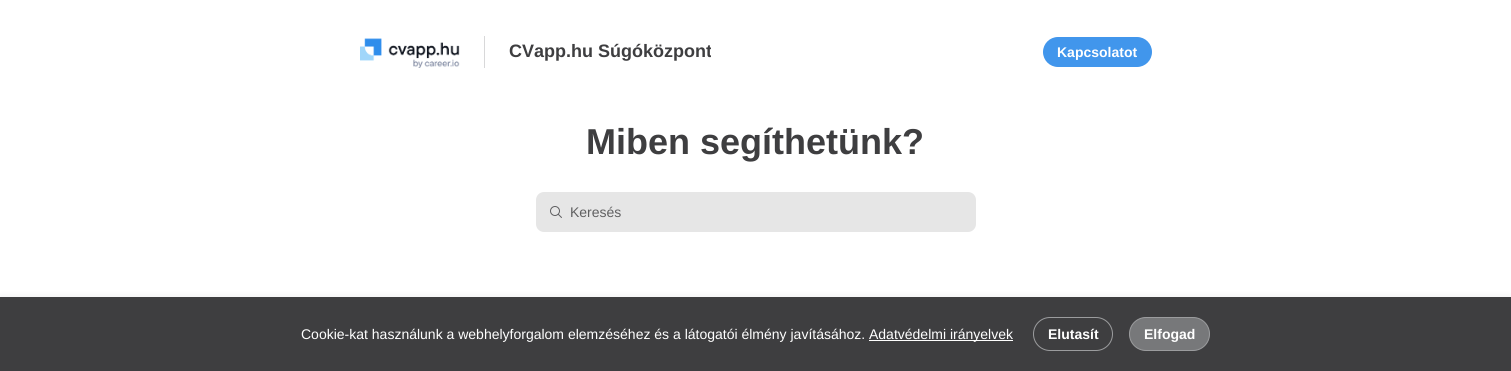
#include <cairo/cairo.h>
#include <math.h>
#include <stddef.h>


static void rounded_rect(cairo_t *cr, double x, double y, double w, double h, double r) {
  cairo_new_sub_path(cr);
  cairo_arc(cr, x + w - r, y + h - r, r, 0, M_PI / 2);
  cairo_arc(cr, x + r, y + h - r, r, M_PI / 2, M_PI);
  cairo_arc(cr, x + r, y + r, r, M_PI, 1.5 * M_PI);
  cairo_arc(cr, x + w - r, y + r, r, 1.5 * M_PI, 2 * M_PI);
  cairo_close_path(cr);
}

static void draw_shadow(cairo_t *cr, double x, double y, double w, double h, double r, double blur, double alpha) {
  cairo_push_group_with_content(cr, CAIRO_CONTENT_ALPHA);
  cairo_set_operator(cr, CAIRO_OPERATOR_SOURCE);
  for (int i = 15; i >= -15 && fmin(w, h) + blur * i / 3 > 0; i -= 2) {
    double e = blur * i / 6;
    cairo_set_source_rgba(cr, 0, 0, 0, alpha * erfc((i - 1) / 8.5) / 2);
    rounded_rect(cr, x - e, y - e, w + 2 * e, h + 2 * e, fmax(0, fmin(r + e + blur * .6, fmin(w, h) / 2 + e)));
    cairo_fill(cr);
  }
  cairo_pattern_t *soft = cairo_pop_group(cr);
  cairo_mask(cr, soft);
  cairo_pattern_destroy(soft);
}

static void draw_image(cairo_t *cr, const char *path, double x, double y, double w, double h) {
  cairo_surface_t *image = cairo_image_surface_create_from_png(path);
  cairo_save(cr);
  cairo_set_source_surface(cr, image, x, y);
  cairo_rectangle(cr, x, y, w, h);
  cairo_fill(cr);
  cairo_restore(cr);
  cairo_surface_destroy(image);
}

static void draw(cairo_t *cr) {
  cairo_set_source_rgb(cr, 1, 1, 1);
  cairo_paint(cr);
  draw_image(cr, "images/1.png", 360, 38, 100, 30);
  cairo_set_source_rgb(cr, 216 / 255.0, 216 / 255.0, 217 / 255.0);
  cairo_rectangle(cr, 484, 36, 1, 32);
  cairo_fill(cr);
  cairo_set_source_rgb(cr, 65 / 255.0, 150 / 255.0, 236 / 255.0);
  rounded_rect(cr, 1043, 37, 109, 30, 15);
  cairo_fill(cr);
  cairo_set_source_rgb(cr, 230 / 255.0, 230 / 255.0, 230 / 255.0);
  rounded_rect(cr, 536, 192, 440, 40, 8);
  cairo_fill(cr);
  draw_image(cr, "images/2.png", 550, 206, 12, 12);
  cairo_set_source_rgb(cr, 0, 0, 0);
  draw_shadow(cr, 0, 298, 1511, 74, 0, 4.5, 0.08);
  cairo_set_source_rgb(cr, 62 / 255.0, 62 / 255.0, 64 / 255.0);
  cairo_rectangle(cr, 0, 297, 1511, 74);
  cairo_fill(cr);
  cairo_set_source_rgb(cr, 1, 1, 1);
  cairo_rectangle(cr, 869, 340, 144, 1);
  cairo_fill(cr);
  rounded_rect(cr, 1033.5, 317.5, 79, 33, 16.5);
  cairo_set_source_rgb(cr, 155 / 255.0, 156 / 255.0, 158 / 255.0);
  cairo_set_line_width(cr, 1);
  cairo_stroke(cr);
  cairo_set_source_rgb(cr, 119 / 255.0, 120 / 255.0, 122 / 255.0);
  rounded_rect(cr, 1129.5, 317.5, 80, 33, 16.5);
  cairo_fill_preserve(cr);
  cairo_set_source_rgb(cr, 155 / 255.0, 156 / 255.0, 158 / 255.0);
  cairo_stroke(cr);
  cairo_save(cr);
  cairo_rectangle(cr, 509, 41, 202, 22);
  cairo_clip(cr);
  cairo_select_font_face(cr, "Liberation Sans", CAIRO_FONT_SLANT_NORMAL, CAIRO_FONT_WEIGHT_BOLD);
  cairo_set_font_size(cr, 18);
  cairo_set_source_rgb(cr, 62 / 255.0, 62 / 255.0, 64 / 255.0);
  cairo_move_to(cr, 509, 57);
  cairo_show_text(cr, "CVapp.hu Súgóközpont");
  cairo_restore(cr);
  cairo_select_font_face(cr, "Liberation Sans", CAIRO_FONT_SLANT_NORMAL, CAIRO_FONT_WEIGHT_BOLD);
  cairo_set_font_size(cr, 14);
  cairo_set_source_rgb(cr, 1, 1, 1);
  cairo_move_to(cr, 1057, 57);
  cairo_show_text(cr, "Kapcsolatot");
  cairo_set_font_size(cr, 36);
  cairo_set_source_rgb(cr, 62 / 255.0, 62 / 255.0, 64 / 255.0);
  cairo_move_to(cr, 586, 154);
  cairo_show_text(cr, "Miben segíthetünk?");
  cairo_select_font_face(cr, "Liberation Sans", CAIRO_FONT_SLANT_NORMAL, CAIRO_FONT_WEIGHT_NORMAL);
  cairo_set_font_size(cr, 14);
  cairo_set_source_rgb(cr, 96 / 255.0, 96 / 255.0, 97 / 255.0);
  cairo_move_to(cr, 570, 217);
  cairo_show_text(cr, "Keresés");
  cairo_set_source_rgb(cr, 1, 1, 1);
  cairo_move_to(cr, 301, 339);
  cairo_show_text(cr, "Cookie-kat használunk a webhelyforgalom elemzéséhez és a látogatói élmény javításához.");
  cairo_move_to(cr, 869, 339);
  cairo_show_text(cr, "Adatvédelmi irányelvek");
  cairo_select_font_face(cr, "Liberation Sans", CAIRO_FONT_SLANT_NORMAL, CAIRO_FONT_WEIGHT_BOLD);
  cairo_move_to(cr, 1048, 339);
  cairo_show_text(cr, "Elutasít");
  cairo_move_to(cr, 1144, 339);
  cairo_show_text(cr, "Elfogad");
}

int main(void) {
  cairo_surface_t *surface = cairo_image_surface_create(CAIRO_FORMAT_RGB24, 1511, 371);
  cairo_t *cr = cairo_create(surface);
  cairo_font_options_t *options = cairo_font_options_create();
  cairo_font_options_set_hint_metrics(options, CAIRO_HINT_METRICS_OFF);
  cairo_font_options_set_hint_style(options, CAIRO_HINT_STYLE_NONE);
  cairo_set_font_options(cr, options);
  cairo_set_miter_limit(cr, 4);
  draw(cr);
  cairo_surface_write_to_png(surface, "out.png");
  cairo_font_options_destroy(options);
  cairo_destroy(cr);
  cairo_surface_destroy(surface);
  return 0;
}
